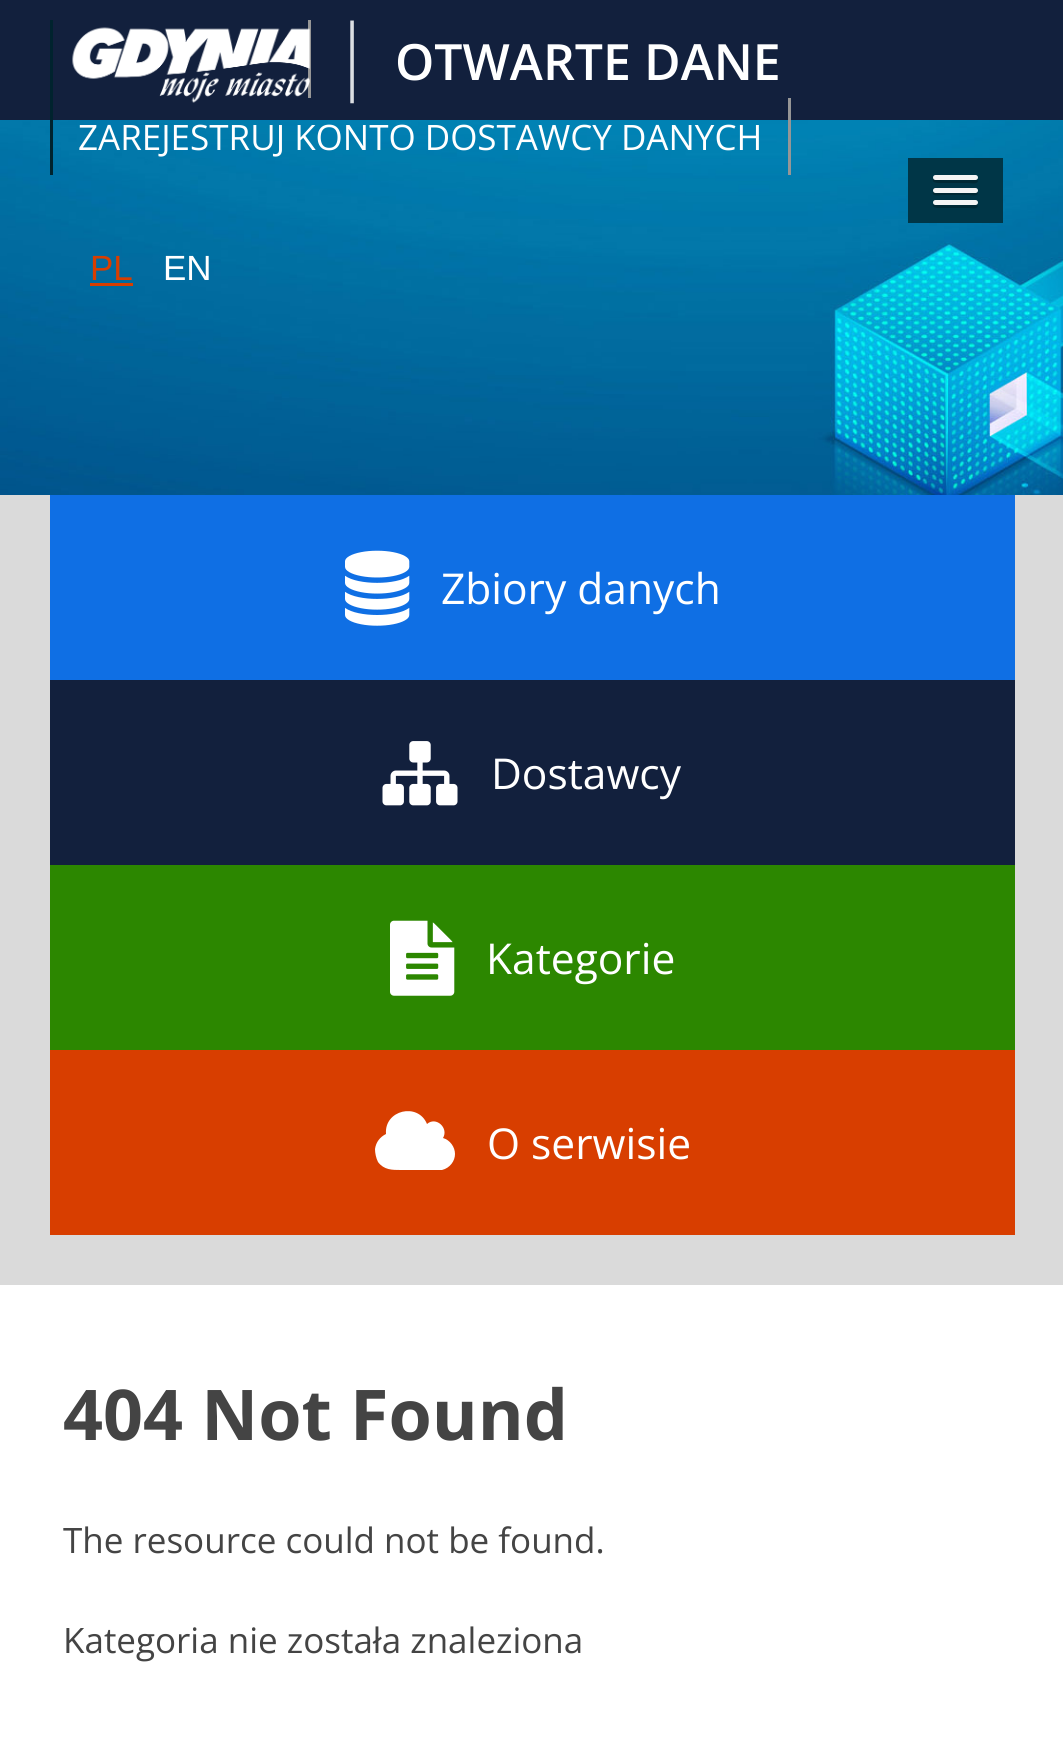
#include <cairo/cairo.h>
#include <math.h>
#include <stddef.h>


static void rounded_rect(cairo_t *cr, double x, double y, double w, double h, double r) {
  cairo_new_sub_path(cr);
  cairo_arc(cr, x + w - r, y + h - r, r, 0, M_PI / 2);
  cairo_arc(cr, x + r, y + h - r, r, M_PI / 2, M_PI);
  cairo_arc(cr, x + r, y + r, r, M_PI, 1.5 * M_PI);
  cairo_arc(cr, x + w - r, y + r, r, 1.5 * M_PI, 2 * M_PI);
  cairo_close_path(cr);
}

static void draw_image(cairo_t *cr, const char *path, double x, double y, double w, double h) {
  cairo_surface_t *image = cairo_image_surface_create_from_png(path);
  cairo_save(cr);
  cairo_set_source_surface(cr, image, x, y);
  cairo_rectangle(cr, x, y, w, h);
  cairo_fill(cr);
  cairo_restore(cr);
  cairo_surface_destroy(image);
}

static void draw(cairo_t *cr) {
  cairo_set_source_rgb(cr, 218 / 255.0, 218 / 255.0, 218 / 255.0);
  cairo_paint(cr);
  cairo_set_source_rgb(cr, 18 / 255.0, 32 / 255.0, 61 / 255.0);
  cairo_rectangle(cr, 0, 0, 1063, 120);
  cairo_fill(cr);
  cairo_set_source_rgb(cr, 150 / 255.0, 150 / 255.0, 150 / 255.0);
  cairo_rectangle(cr, 308, 20, 3, 78);
  cairo_fill(cr);
  draw_image(cr, "images/1.png", 72, 27, 238, 76);
  draw_image(cr, "images/2.png", 0, 120, 1063, 375);
  cairo_set_source_rgb(cr, 0, 35 / 255.0, 46 / 255.0);
  cairo_rectangle(cr, 50, 20, 3, 155);
  cairo_fill(cr);
  cairo_set_source_rgb(cr, 150 / 255.0, 150 / 255.0, 150 / 255.0);
  cairo_rectangle(cr, 788, 98, 3, 77);
  cairo_fill(cr);
  cairo_set_source_rgb(cr, 216 / 255.0, 62 / 255.0, 0);
  cairo_rectangle(cr, 90, 283, 43, 3);
  cairo_fill(cr);
  cairo_set_source_rgb(cr, 0, 54 / 255.0, 71 / 255.0);
  cairo_rectangle(cr, 908, 158, 95, 65);
  cairo_fill(cr);
  cairo_set_source_rgb(cr, 0, 41 / 255.0, 53 / 255.0);
  cairo_new_path(cr);
  cairo_move_to(cr, 933, 179);
  cairo_curve_to(cr, 931, 184, 942, 183, 942, 183);
  cairo_line_to(cr, 969, 183);
  cairo_curve_to(cr, 970, 183, 977, 185, 978, 181);
  cairo_line_to(cr, 977, 179);
  cairo_line_to(cr, 975, 180);
  cairo_curve_to(cr, 972, 180, 935, 181, 933, 179);
  cairo_close_path(cr);
  cairo_fill(cr);
  cairo_set_source_rgb(cr, 245 / 255.0, 245 / 255.0, 245 / 255.0);
  rounded_rect(cr, 933, 175, 45, 5, 2.5);
  cairo_fill(cr);
  cairo_set_source_rgb(cr, 0, 41 / 255.0, 53 / 255.0);
  cairo_new_path(cr);
  cairo_move_to(cr, 933, 192);
  cairo_curve_to(cr, 931, 197, 941, 195, 942, 195);
  cairo_line_to(cr, 969, 195);
  cairo_curve_to(cr, 970, 195, 977, 197, 978, 193);
  cairo_line_to(cr, 977, 191);
  cairo_line_to(cr, 975, 192);
  cairo_line_to(cr, 935, 192);
  cairo_close_path(cr);
  cairo_fill(cr);
  cairo_set_source_rgb(cr, 245 / 255.0, 245 / 255.0, 245 / 255.0);
  rounded_rect(cr, 933, 188, 45, 5, 2.5);
  cairo_fill(cr);
  cairo_set_source_rgb(cr, 0, 41 / 255.0, 53 / 255.0);
  cairo_new_path(cr);
  cairo_move_to(cr, 933, 204);
  cairo_curve_to(cr, 931, 209, 942, 208, 942, 208);
  cairo_line_to(cr, 969, 208);
  cairo_curve_to(cr, 970, 208, 977, 210, 978, 206);
  cairo_line_to(cr, 977, 204);
  cairo_line_to(cr, 975, 205);
  cairo_curve_to(cr, 972, 205, 935, 206, 933, 204);
  cairo_close_path(cr);
  cairo_fill(cr);
  cairo_set_source_rgb(cr, 245 / 255.0, 245 / 255.0, 245 / 255.0);
  rounded_rect(cr, 933, 200, 45, 5, 2.5);
  cairo_fill(cr);
  cairo_set_source_rgb(cr, 15 / 255.0, 111 / 255.0, 228 / 255.0);
  cairo_rectangle(cr, 50, 495, 965, 185);
  cairo_fill(cr);
  draw_image(cr, "images/3.png", 345, 550, 65, 76);
  cairo_set_source_rgb(cr, 18 / 255.0, 32 / 255.0, 61 / 255.0);
  cairo_rectangle(cr, 50, 680, 965, 185);
  cairo_fill(cr);
  draw_image(cr, "images/4.png", 382, 741, 76, 65);
  cairo_set_source_rgb(cr, 44 / 255.0, 135 / 255.0, 0);
  cairo_rectangle(cr, 50, 865, 965, 185);
  cairo_fill(cr);
  draw_image(cr, "images/5.png", 390, 920, 65, 76);
  cairo_set_source_rgb(cr, 216 / 255.0, 62 / 255.0, 0);
  cairo_rectangle(cr, 50, 1050, 965, 185);
  cairo_fill(cr);
  cairo_set_source_rgb(cr, 1, 1, 1);
  cairo_new_path(cr);
  cairo_move_to(cr, 455, 1154);
  cairo_curve_to(cr, 455, 1161, 450, 1168, 442, 1170);
  cairo_line_to(cr, 401, 1170);
  cairo_curve_to(cr, 392, 1170, 384, 1170, 378, 1162);
  cairo_curve_to(cr, 376, 1158, 375, 1153, 375, 1149);
  cairo_curve_to(cr, 376, 1142, 380, 1137, 386, 1134);
  cairo_curve_to(cr, 384, 1110, 418, 1102, 427, 1124);
  cairo_curve_to(cr, 436, 1116, 449, 1128, 443, 1138);
  cairo_curve_to(cr, 450, 1140, 455, 1147, 455, 1154);
  cairo_close_path(cr);
  cairo_fill(cr);
  cairo_rectangle(cr, 0, 1285, 1063, 458);
  cairo_fill(cr);
  cairo_select_font_face(cr, "Open Sans Light", CAIRO_FONT_SLANT_NORMAL, CAIRO_FONT_WEIGHT_NORMAL);
  cairo_set_font_size(cr, 82);
  cairo_set_source_rgb(cr, 219 / 255.0, 222 / 255.0, 226 / 255.0);
  cairo_move_to(cr, 330, 83);
  cairo_show_text(cr, "|");
  cairo_select_font_face(cr, "Open Sans SemiBold", CAIRO_FONT_SLANT_NORMAL, CAIRO_FONT_WEIGHT_NORMAL);
  cairo_set_font_size(cr, 50);
  cairo_set_source_rgb(cr, 1, 1, 1);
  cairo_move_to(cr, 395, 80);
  cairo_show_text(cr, "OTWARTE DANE");
  cairo_select_font_face(cr, "Open Sans", CAIRO_FONT_SLANT_NORMAL, CAIRO_FONT_WEIGHT_NORMAL);
  cairo_set_font_size(cr, 35);
  cairo_move_to(cr, 78, 150);
  cairo_show_text(cr, "ZAREJESTRUJ KONTO DOSTAWCY DANYCH");
  cairo_select_font_face(cr, "Liberation Sans", CAIRO_FONT_SLANT_NORMAL, CAIRO_FONT_WEIGHT_NORMAL);
  cairo_set_source_rgb(cr, 216 / 255.0, 62 / 255.0, 0);
  cairo_move_to(cr, 90, 280);
  cairo_show_text(cr, "PL");
  cairo_set_source_rgb(cr, 1, 1, 1);
  cairo_move_to(cr, 163, 280);
  cairo_show_text(cr, "EN");
  cairo_select_font_face(cr, "Open Sans", CAIRO_FONT_SLANT_NORMAL, CAIRO_FONT_WEIGHT_NORMAL);
  cairo_set_font_size(cr, 42.5);
  cairo_move_to(cr, 441, 604);
  cairo_show_text(cr, "Zbiory danych");
  cairo_move_to(cr, 491, 789);
  cairo_show_text(cr, "Dostawcy");
  cairo_move_to(cr, 486, 974);
  cairo_show_text(cr, "Kategorie");
  cairo_move_to(cr, 487, 1159);
  cairo_show_text(cr, "O serwisie");
  cairo_select_font_face(cr, "Open Sans", CAIRO_FONT_SLANT_NORMAL, CAIRO_FONT_WEIGHT_BOLD);
  cairo_set_font_size(cr, 70);
  cairo_set_source_rgb(cr, 68 / 255.0, 68 / 255.0, 68 / 255.0);
  cairo_move_to(cr, 63, 1440);
  cairo_show_text(cr, "404 Not Found");
  cairo_select_font_face(cr, "Open Sans", CAIRO_FONT_SLANT_NORMAL, CAIRO_FONT_WEIGHT_NORMAL);
  cairo_set_font_size(cr, 35);
  cairo_move_to(cr, 63, 1553);
  cairo_show_text(cr, "The resource could not be found.");
  cairo_move_to(cr, 63, 1653);
  cairo_show_text(cr, "Kategoria nie została znaleziona");
}

int main(void) {
  cairo_surface_t *surface = cairo_image_surface_create(CAIRO_FORMAT_RGB24, 1063, 1743);
  cairo_t *cr = cairo_create(surface);
  cairo_font_options_t *options = cairo_font_options_create();
  cairo_font_options_set_hint_metrics(options, CAIRO_HINT_METRICS_OFF);
  cairo_font_options_set_hint_style(options, CAIRO_HINT_STYLE_NONE);
  cairo_set_font_options(cr, options);
  cairo_set_miter_limit(cr, 4);
  draw(cr);
  cairo_surface_write_to_png(surface, "out.png");
  cairo_font_options_destroy(options);
  cairo_destroy(cr);
  cairo_surface_destroy(surface);
  return 0;
}
